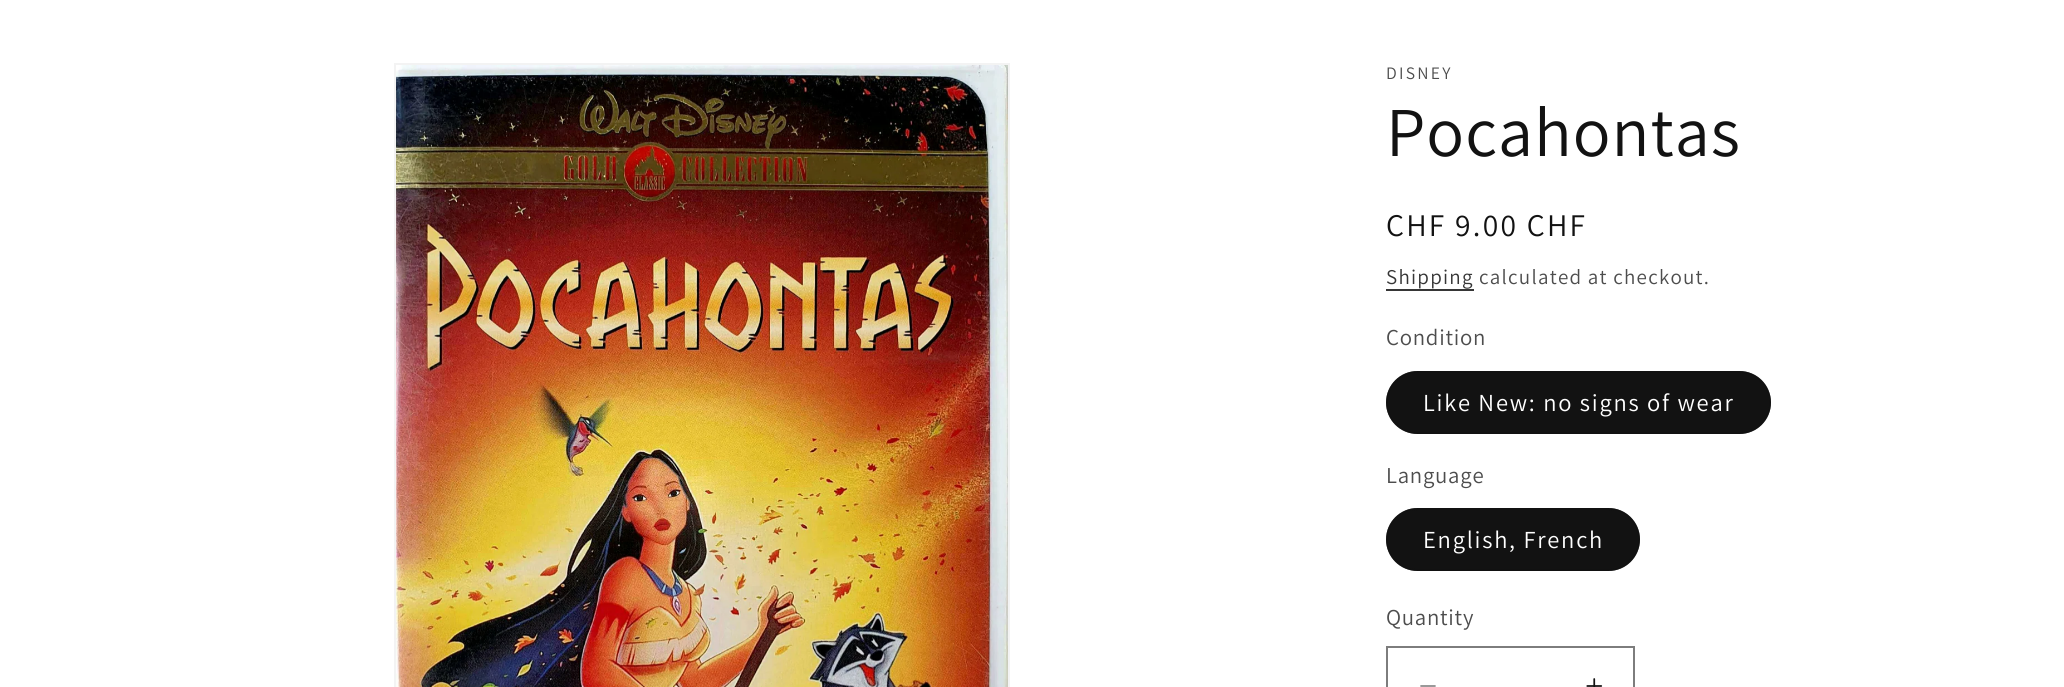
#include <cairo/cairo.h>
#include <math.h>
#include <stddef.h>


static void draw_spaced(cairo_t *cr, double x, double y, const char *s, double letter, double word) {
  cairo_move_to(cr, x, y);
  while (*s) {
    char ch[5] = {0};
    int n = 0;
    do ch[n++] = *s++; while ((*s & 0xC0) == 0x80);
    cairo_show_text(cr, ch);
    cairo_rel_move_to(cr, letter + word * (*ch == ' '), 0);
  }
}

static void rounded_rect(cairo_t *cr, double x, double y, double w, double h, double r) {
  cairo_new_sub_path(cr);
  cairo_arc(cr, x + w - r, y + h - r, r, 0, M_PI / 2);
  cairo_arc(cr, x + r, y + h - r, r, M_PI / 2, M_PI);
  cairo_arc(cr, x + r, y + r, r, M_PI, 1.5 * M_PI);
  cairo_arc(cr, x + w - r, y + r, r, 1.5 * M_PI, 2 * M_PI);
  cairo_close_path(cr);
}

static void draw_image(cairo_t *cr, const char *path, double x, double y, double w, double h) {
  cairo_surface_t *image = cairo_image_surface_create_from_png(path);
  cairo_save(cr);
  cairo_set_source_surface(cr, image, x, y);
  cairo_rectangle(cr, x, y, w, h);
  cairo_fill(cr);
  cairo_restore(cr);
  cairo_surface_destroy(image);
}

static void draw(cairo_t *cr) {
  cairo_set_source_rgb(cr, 1, 1, 1);
  cairo_paint(cr);
  cairo_rectangle(cr, 395, 64, 614, 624);
  cairo_set_source_rgb(cr, 243 / 255.0, 243 / 255.0, 243 / 255.0);
  cairo_stroke(cr);
  draw_image(cr, "images/1.png", 396, 65, 612, 622);
  cairo_set_source_rgb(cr, 54 / 255.0, 54 / 255.0, 54 / 255.0);
  cairo_rectangle(cr, 1386, 289, 88, 2);
  cairo_fill(cr);
  cairo_set_source_rgb(cr, 18 / 255.0, 18 / 255.0, 18 / 255.0);
  rounded_rect(cr, 1386, 371, 385, 63, 31.5);
  cairo_fill(cr);
  rounded_rect(cr, 1387, 372, 383, 61, 30.5);
  cairo_set_source_rgba(cr, 18 / 255.0, 18 / 255.0, 18 / 255.0, 0.55);
  cairo_stroke(cr);
  cairo_set_source_rgb(cr, 18 / 255.0, 18 / 255.0, 18 / 255.0);
  rounded_rect(cr, 1386, 508, 254, 63, 31.5);
  cairo_fill(cr);
  rounded_rect(cr, 1387, 509, 252, 61, 30.5);
  cairo_set_source_rgba(cr, 18 / 255.0, 18 / 255.0, 18 / 255.0, 0.55);
  cairo_stroke(cr);
  draw_image(cr, "images/2.png", 1420, 685, 16, 2);
  draw_image(cr, "images/3.png", 1586, 678, 17, 9);
  cairo_rectangle(cr, 1387, 647, 247, 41);
  cairo_set_source_rgb(cr, 125 / 255.0, 125 / 255.0, 125 / 255.0);
  cairo_stroke(cr);
  cairo_select_font_face(cr, "Assistant", CAIRO_FONT_SLANT_NORMAL, CAIRO_FONT_WEIGHT_NORMAL);
  cairo_set_font_size(cr, 17.5);
  cairo_set_source_rgb(cr, 77 / 255.0, 77 / 255.0, 77 / 255.0);
  draw_spaced(cr, 1386, 79, "DISNEY", 2.25, 0);
  cairo_set_font_size(cr, 70);
  cairo_set_source_rgb(cr, 18 / 255.0, 18 / 255.0, 18 / 255.0);
  draw_spaced(cr, 1386, 156, "Pocahontas", 1, 0);
  cairo_set_font_size(cr, 31.5);
  draw_spaced(cr, 1386, 236, "CHF 9.00 CHF", 2.25, 0);
  cairo_set_font_size(cr, 21);
  cairo_set_source_rgb(cr, 54 / 255.0, 54 / 255.0, 54 / 255.0);
  draw_spaced(cr, 1386, 284, "Shipping", 1.25, 0);
  cairo_set_source_rgb(cr, 77 / 255.0, 77 / 255.0, 77 / 255.0);
  draw_spaced(cr, 1479, 284, "calculated at checkout.", 1.25, 0);
  cairo_set_font_size(cr, 22.75);
  draw_spaced(cr, 1386, 345, "Condition", 0.75, 0);
  cairo_set_font_size(cr, 24.5);
  cairo_set_source_rgb(cr, 1, 1, 1);
  draw_spaced(cr, 1423, 411, "Like New: no signs of wear", 1.75, 0);
  cairo_set_font_size(cr, 22.75);
  cairo_set_source_rgb(cr, 77 / 255.0, 77 / 255.0, 77 / 255.0);
  draw_spaced(cr, 1386, 483, "Language", 0.75, 0);
  cairo_set_font_size(cr, 24.5);
  cairo_set_source_rgb(cr, 1, 1, 1);
  draw_spaced(cr, 1423, 548, "English, French", 1.75, 0);
  cairo_set_font_size(cr, 22.75);
  cairo_set_source_rgb(cr, 77 / 255.0, 77 / 255.0, 77 / 255.0);
  draw_spaced(cr, 1386, 625, "Quantity", 0.75, 0);
}

int main(void) {
  cairo_surface_t *surface = cairo_image_surface_create(CAIRO_FORMAT_RGB24, 2064, 687);
  cairo_t *cr = cairo_create(surface);
  cairo_font_options_t *options = cairo_font_options_create();
  cairo_font_options_set_hint_metrics(options, CAIRO_HINT_METRICS_OFF);
  cairo_font_options_set_hint_style(options, CAIRO_HINT_STYLE_NONE);
  cairo_set_font_options(cr, options);
  cairo_set_miter_limit(cr, 4);
  draw(cr);
  cairo_surface_write_to_png(surface, "out.png");
  cairo_font_options_destroy(options);
  cairo_destroy(cr);
  cairo_surface_destroy(surface);
  return 0;
}
